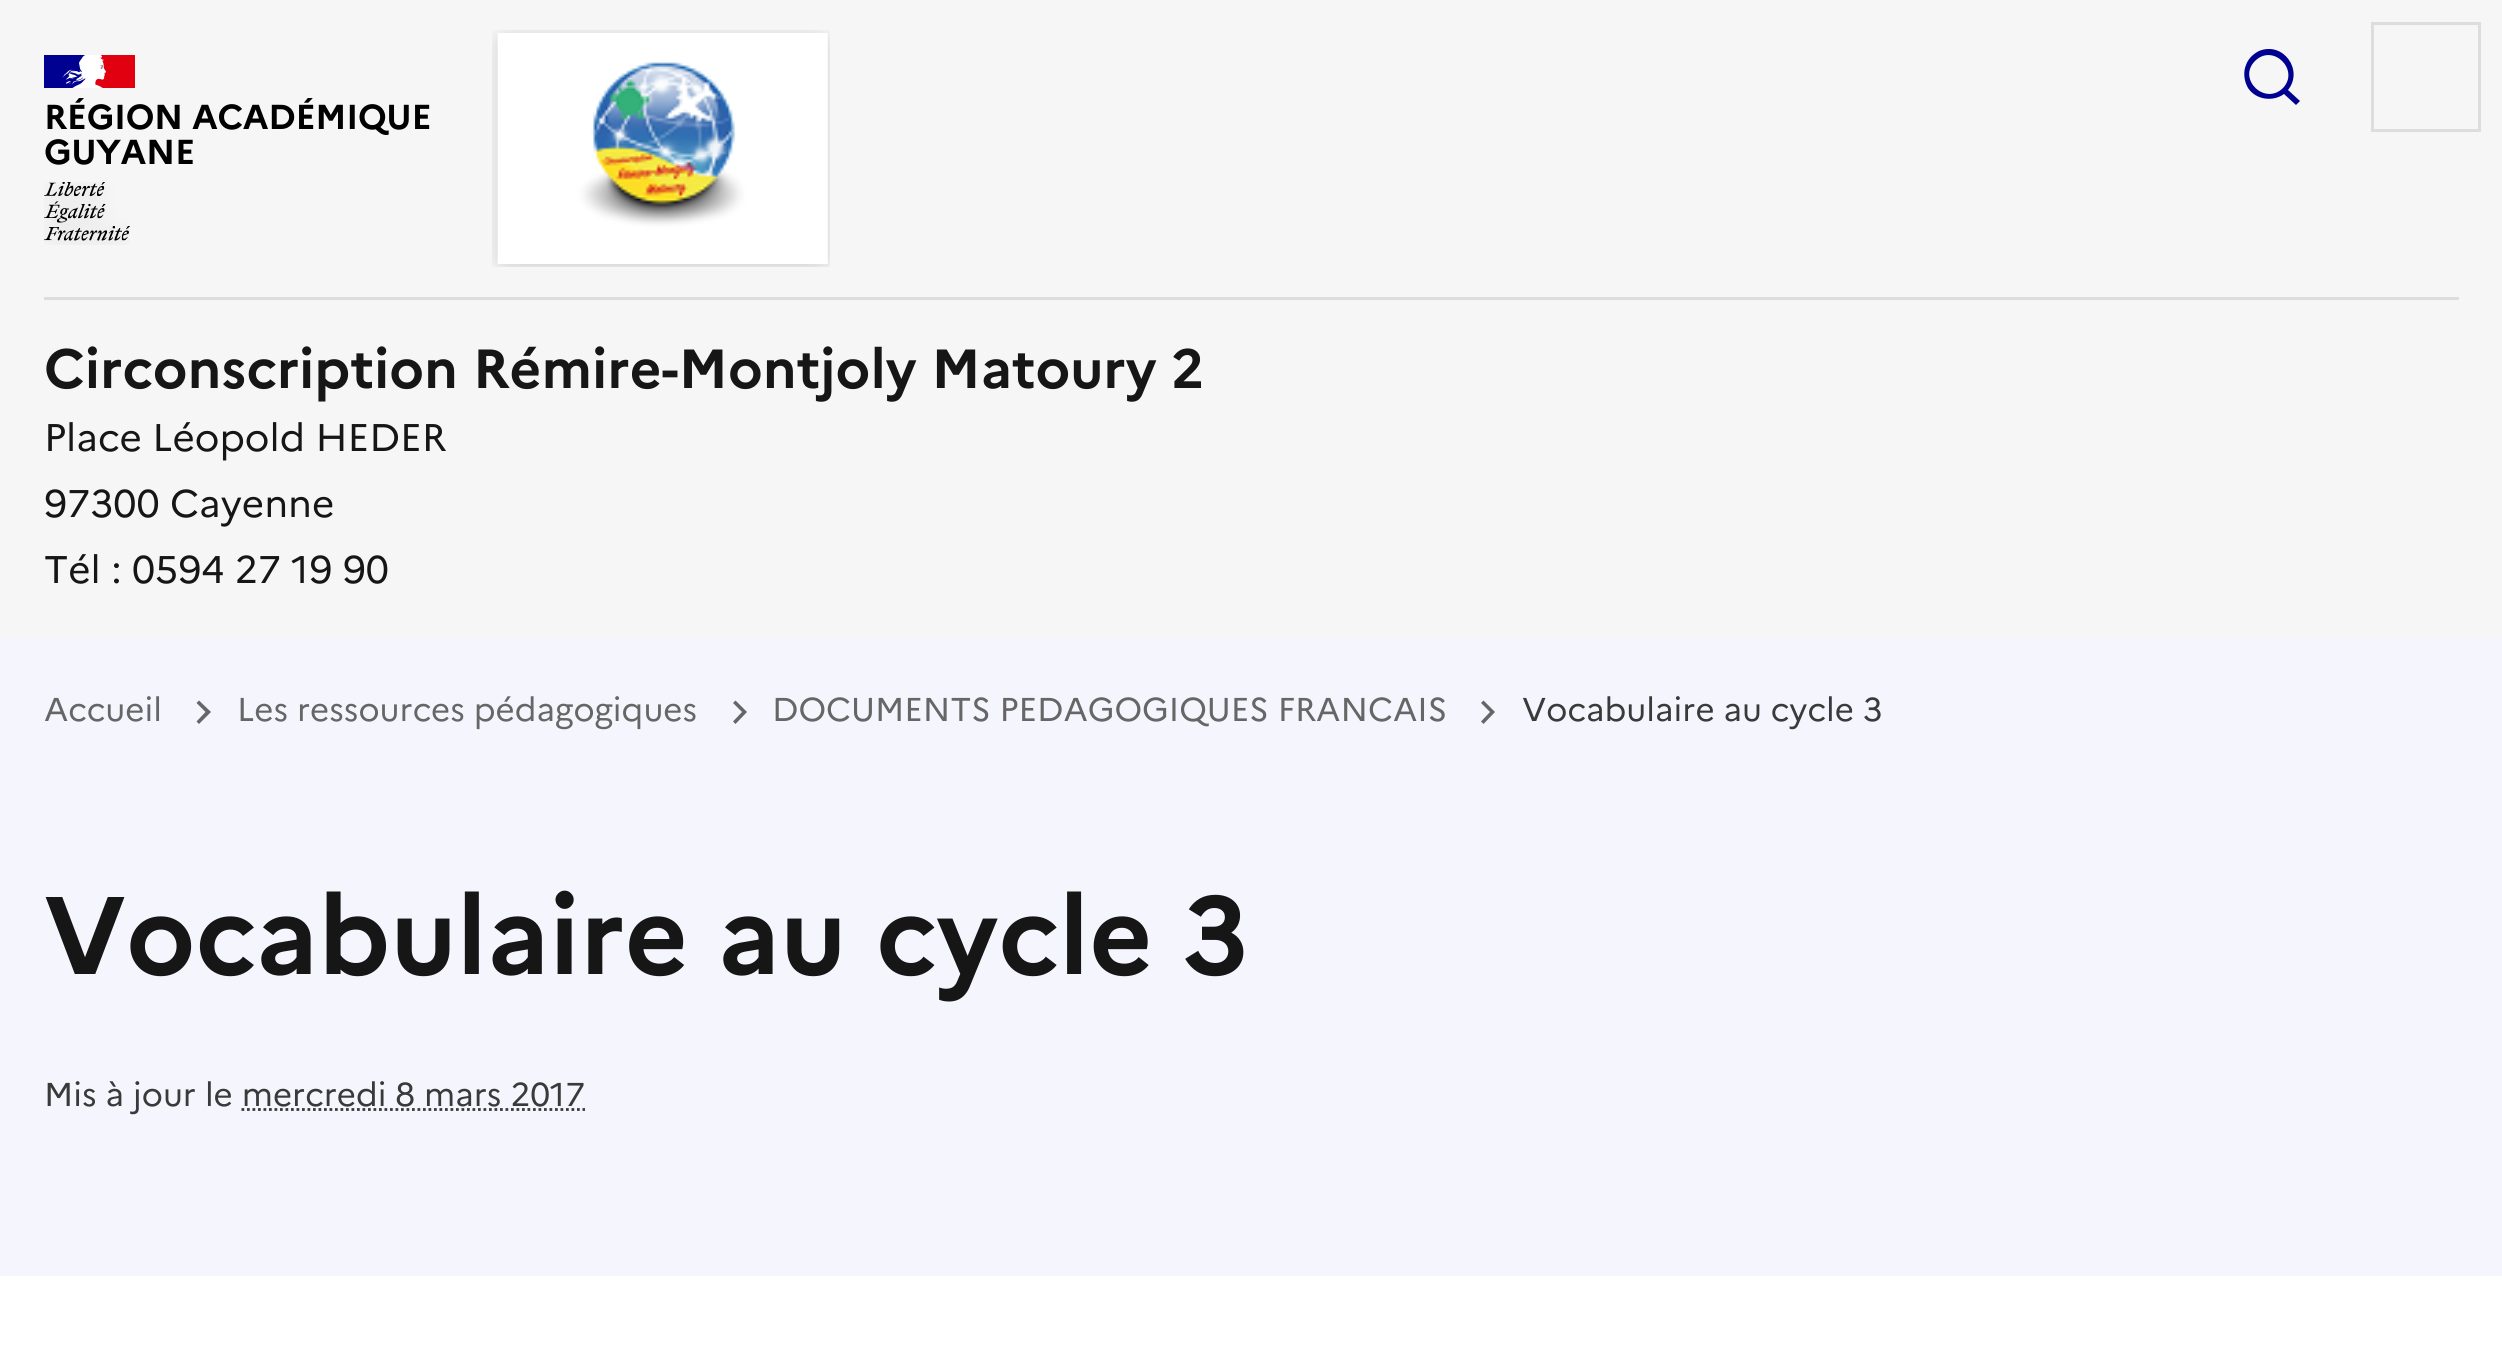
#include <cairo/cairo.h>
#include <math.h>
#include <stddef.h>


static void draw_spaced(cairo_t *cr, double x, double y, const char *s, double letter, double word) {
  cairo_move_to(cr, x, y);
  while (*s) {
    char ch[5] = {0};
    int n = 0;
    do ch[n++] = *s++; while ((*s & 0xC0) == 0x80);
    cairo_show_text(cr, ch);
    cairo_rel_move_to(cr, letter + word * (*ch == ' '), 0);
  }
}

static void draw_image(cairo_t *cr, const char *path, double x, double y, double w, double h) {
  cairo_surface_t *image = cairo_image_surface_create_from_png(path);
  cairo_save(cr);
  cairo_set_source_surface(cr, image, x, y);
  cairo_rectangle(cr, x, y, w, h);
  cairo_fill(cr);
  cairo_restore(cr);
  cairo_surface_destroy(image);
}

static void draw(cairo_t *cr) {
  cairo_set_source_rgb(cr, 1, 1, 1);
  cairo_paint(cr);
  cairo_set_source_rgb(cr, 246 / 255.0, 246 / 255.0, 246 / 255.0);
  cairo_rectangle(cr, 0, 0, 2502, 638);
  cairo_fill(cr);
  cairo_set_source_rgb(cr, 0, 0, 145 / 255.0);
  cairo_rectangle(cr, 44, 55, 42, 33);
  cairo_fill(cr);
  cairo_set_source_rgb(cr, 225 / 255.0, 0, 15 / 255.0);
  cairo_rectangle(cr, 95, 55, 40, 33);
  cairo_fill(cr);
  draw_image(cr, "images/1.png", 62, 55, 44, 33);
  draw_image(cr, "images/2.png", 44, 182, 86, 63);
  draw_image(cr, "images/3.png", 492, 30, 338, 237);
  cairo_set_source_rgb(cr, 0, 0, 145 / 255.0);
  cairo_new_path(cr);
  cairo_move_to(cr, 2288, 90);
  cairo_line_to(cr, 2300, 101);
  cairo_line_to(cr, 2296, 105);
  cairo_line_to(cr, 2284, 94);
  cairo_curve_to(cr, 2273, 102, 2256, 100, 2248, 88);
  cairo_curve_to(cr, 2244, 81, 2243, 72, 2246, 65);
  cairo_curve_to(cr, 2248, 59, 2253, 54, 2259, 51);
  cairo_curve_to(cr, 2283, 41, 2304, 70, 2288, 90);
  cairo_close_path(cr);
  cairo_move_to(cr, 2283, 88);
  cairo_curve_to(cr, 2300, 70, 2273, 43, 2255, 61);
  cairo_curve_to(cr, 2237, 79, 2265, 106, 2283, 88);
  cairo_close_path(cr);
  cairo_fill(cr);
  cairo_rectangle(cr, 2372.5, 23.5, 107, 107);
  cairo_set_source_rgb(cr, 221 / 255.0, 221 / 255.0, 221 / 255.0);
  cairo_set_line_width(cr, 3);
  cairo_stroke(cr);
  cairo_rectangle(cr, 44, 297, 2415, 3);
  cairo_fill(cr);
  cairo_set_source_rgb(cr, 245 / 255.0, 245 / 255.0, 254 / 255.0);
  cairo_rectangle(cr, 0, 638, 2502, 638);
  cairo_fill(cr);
  cairo_set_source_rgb(cr, 102 / 255.0, 102 / 255.0, 102 / 255.0);
  cairo_new_path(cr);
  cairo_move_to(cr, 205.5, 712);
  cairo_line_to(cr, 196.5, 703);
  cairo_line_to(cr, 199, 700.5);
  cairo_line_to(cr, 211, 712);
  cairo_line_to(cr, 199, 724);
  cairo_line_to(cr, 196.5, 721.5);
  cairo_close_path(cr);
  cairo_fill(cr);
  cairo_new_path(cr);
  cairo_move_to(cr, 742, 712);
  cairo_line_to(cr, 733, 703);
  cairo_line_to(cr, 735.5, 700.5);
  cairo_line_to(cr, 747, 712);
  cairo_line_to(cr, 735.5, 724);
  cairo_line_to(cr, 733, 721.5);
  cairo_close_path(cr);
  cairo_fill(cr);
  cairo_new_path(cr);
  cairo_move_to(cr, 1490, 712);
  cairo_line_to(cr, 1481, 703);
  cairo_line_to(cr, 1483.5, 700.5);
  cairo_line_to(cr, 1495, 712);
  cairo_line_to(cr, 1483.5, 724);
  cairo_line_to(cr, 1481, 721.5);
  cairo_close_path(cr);
  cairo_fill(cr);
  cairo_new_path(cr);
  cairo_move_to(cr, 241.5, 1109.5);
  cairo_line_to(cr, 585, 1109.5);
  cairo_set_source_rgb(cr, 58 / 255.0, 58 / 255.0, 58 / 255.0);
  cairo_set_line_width(cr, 2.8);
  cairo_set_dash(cr, (double[]){2.75, 2.75}, 2, 0);
  cairo_stroke(cr);
  cairo_select_font_face(cr, "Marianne", CAIRO_FONT_SLANT_NORMAL, CAIRO_FONT_WEIGHT_BOLD);
  cairo_set_font_size(cr, 34.6);
  cairo_set_source_rgb(cr, 0, 0, 0);
  draw_spaced(cr, 44, 129, "RÉGION ACADÉMIQUE", -0.3, 0);
  draw_spaced(cr, 44, 164, "GUYANE", -0.3, 0);
  cairo_set_font_size(cr, 55);
  cairo_set_source_rgb(cr, 22 / 255.0, 22 / 255.0, 22 / 255.0);
  cairo_move_to(cr, 44, 388);
  cairo_show_text(cr, "Circonscription Rémire-Montjoly Matoury 2");
  cairo_select_font_face(cr, "Marianne", CAIRO_FONT_SLANT_NORMAL, CAIRO_FONT_WEIGHT_NORMAL);
  cairo_set_font_size(cr, 38.5);
  cairo_move_to(cr, 44, 451);
  cairo_show_text(cr, "Place Léopold HEDER");
  cairo_move_to(cr, 44, 517);
  cairo_show_text(cr, "97300 Cayenne");
  cairo_move_to(cr, 44, 583);
  cairo_show_text(cr, "Tél : 0594 27 19 90");
  cairo_set_font_size(cr, 33);
  cairo_set_source_rgb(cr, 102 / 255.0, 102 / 255.0, 102 / 255.0);
  cairo_move_to(cr, 44, 721);
  cairo_show_text(cr, "Accueil");
  cairo_move_to(cr, 237, 721);
  cairo_show_text(cr, "Les ressources pédagogiques");
  cairo_move_to(cr, 772, 721);
  cairo_show_text(cr, "DOCUMENTS PEDAGOGIQUES FRANCAIS");
  cairo_set_source_rgb(cr, 58 / 255.0, 58 / 255.0, 58 / 255.0);
  cairo_move_to(cr, 1522, 721);
  cairo_show_text(cr, "Vocabulaire au cycle 3");
  cairo_select_font_face(cr, "Marianne", CAIRO_FONT_SLANT_NORMAL, CAIRO_FONT_WEIGHT_BOLD);
  cairo_set_font_size(cr, 110);
  cairo_set_source_rgb(cr, 22 / 255.0, 22 / 255.0, 22 / 255.0);
  cairo_move_to(cr, 44, 974);
  cairo_show_text(cr, "Vocabulaire au cycle 3");
  cairo_select_font_face(cr, "Marianne", CAIRO_FONT_SLANT_NORMAL, CAIRO_FONT_WEIGHT_NORMAL);
  cairo_set_font_size(cr, 33);
  cairo_set_source_rgb(cr, 58 / 255.0, 58 / 255.0, 58 / 255.0);
  cairo_move_to(cr, 44, 1106);
  cairo_show_text(cr, "Mis à jour le mercredi 8 mars 2017");
}

int main(void) {
  cairo_surface_t *surface = cairo_image_surface_create(CAIRO_FORMAT_RGB24, 2502, 1361);
  cairo_t *cr = cairo_create(surface);
  cairo_font_options_t *options = cairo_font_options_create();
  cairo_font_options_set_hint_metrics(options, CAIRO_HINT_METRICS_OFF);
  cairo_font_options_set_hint_style(options, CAIRO_HINT_STYLE_NONE);
  cairo_set_font_options(cr, options);
  cairo_set_miter_limit(cr, 4);
  draw(cr);
  cairo_surface_write_to_png(surface, "out.png");
  cairo_font_options_destroy(options);
  cairo_destroy(cr);
  cairo_surface_destroy(surface);
  return 0;
}
